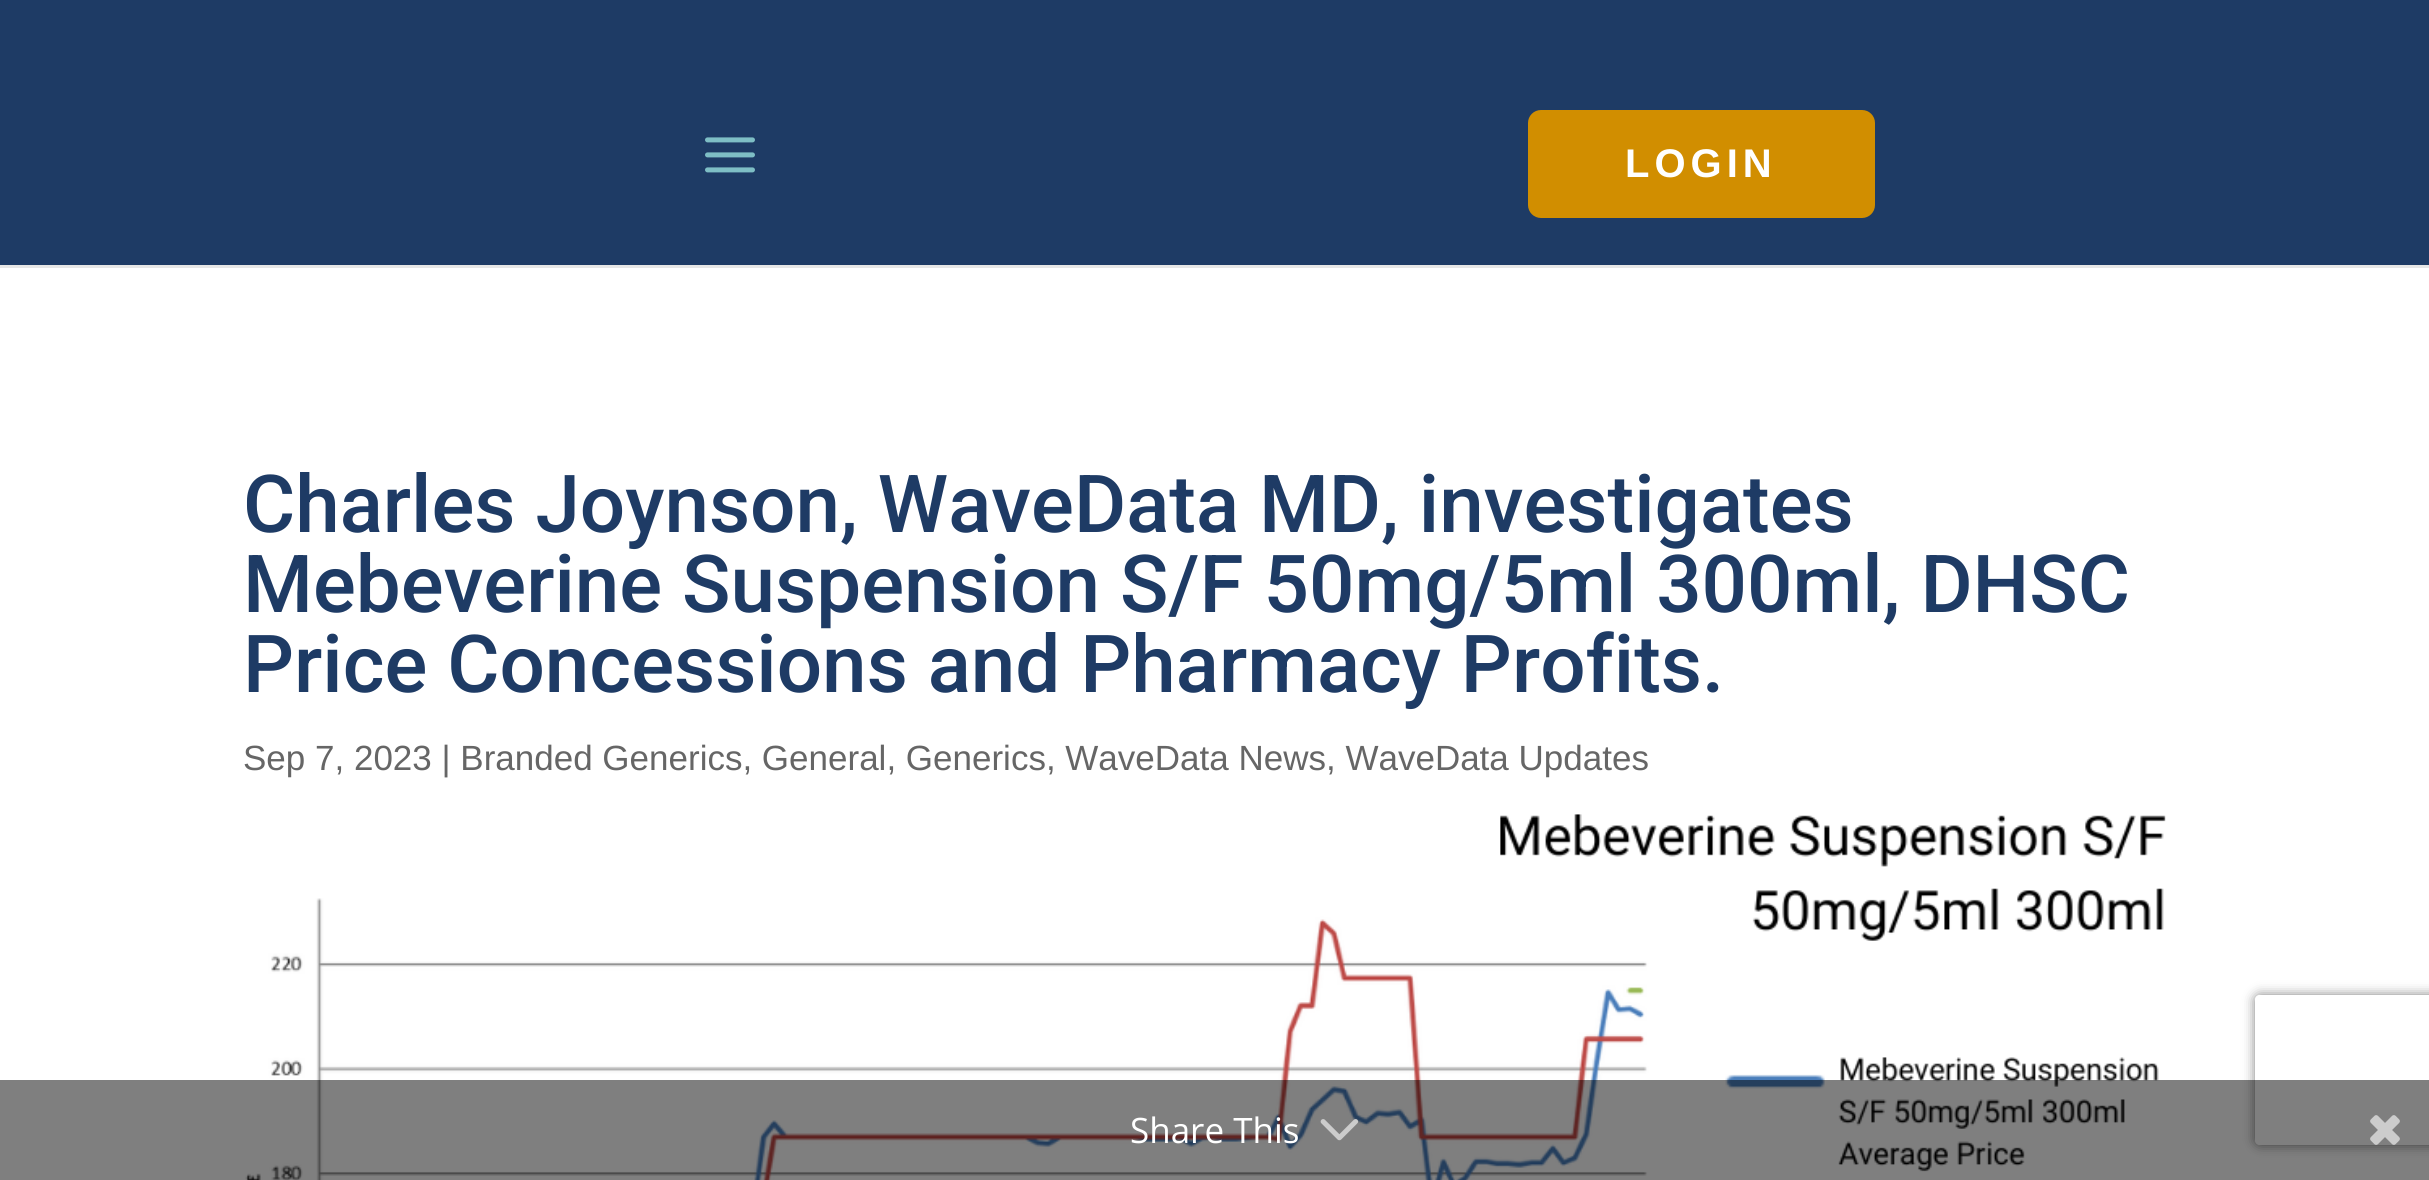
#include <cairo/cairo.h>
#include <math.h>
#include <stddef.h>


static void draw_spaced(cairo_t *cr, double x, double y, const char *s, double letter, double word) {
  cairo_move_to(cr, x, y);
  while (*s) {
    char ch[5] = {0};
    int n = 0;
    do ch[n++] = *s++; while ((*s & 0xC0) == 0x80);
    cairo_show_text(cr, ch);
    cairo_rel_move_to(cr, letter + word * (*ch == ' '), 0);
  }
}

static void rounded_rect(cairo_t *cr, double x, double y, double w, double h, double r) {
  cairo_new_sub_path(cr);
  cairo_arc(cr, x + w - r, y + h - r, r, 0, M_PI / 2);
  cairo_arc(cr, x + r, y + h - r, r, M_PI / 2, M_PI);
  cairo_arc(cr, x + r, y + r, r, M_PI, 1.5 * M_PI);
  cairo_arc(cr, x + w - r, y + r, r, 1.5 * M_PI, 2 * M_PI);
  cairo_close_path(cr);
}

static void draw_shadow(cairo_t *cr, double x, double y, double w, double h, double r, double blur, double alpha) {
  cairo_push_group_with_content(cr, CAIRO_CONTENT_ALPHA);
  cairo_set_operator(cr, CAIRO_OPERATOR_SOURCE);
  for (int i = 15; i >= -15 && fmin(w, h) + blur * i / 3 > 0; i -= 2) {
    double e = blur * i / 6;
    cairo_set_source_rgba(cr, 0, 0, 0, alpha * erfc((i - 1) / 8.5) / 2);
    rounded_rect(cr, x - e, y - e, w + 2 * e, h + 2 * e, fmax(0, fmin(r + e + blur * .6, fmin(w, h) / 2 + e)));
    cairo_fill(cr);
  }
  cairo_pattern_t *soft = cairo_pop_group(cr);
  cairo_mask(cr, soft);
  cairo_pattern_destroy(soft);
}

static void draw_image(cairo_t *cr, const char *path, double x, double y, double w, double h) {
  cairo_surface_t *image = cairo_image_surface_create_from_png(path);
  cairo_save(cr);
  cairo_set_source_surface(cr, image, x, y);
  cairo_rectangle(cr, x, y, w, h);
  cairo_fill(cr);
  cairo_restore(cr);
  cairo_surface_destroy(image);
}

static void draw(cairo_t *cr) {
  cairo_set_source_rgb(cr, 1, 1, 1);
  cairo_paint(cr);
  cairo_set_source_rgb(cr, 230 / 255.0, 230 / 255.0, 230 / 255.0);
  cairo_rectangle(cr, 0, 265, 2429, 3);
  cairo_fill(cr);
  cairo_set_source_rgb(cr, 30 / 255.0, 59 / 255.0, 101 / 255.0);
  cairo_rectangle(cr, 0, 0, 2429, 265);
  cairo_fill(cr);
  draw_image(cr, "images/1.png", 705, 137, 50, 36);
  cairo_set_source_rgb(cr, 209 / 255.0, 142 / 255.0, 0);
  rounded_rect(cr, 1528, 110, 347, 108, 13);
  cairo_fill(cr);
  draw_image(cr, "images/2.png", 245, 814, 1921, 366);
  cairo_save(cr);
  cairo_set_fill_rule(cr, CAIRO_FILL_RULE_EVEN_ODD);
  cairo_new_path(cr);
  cairo_move_to(cr, 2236, 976);
  cairo_line_to(cr, 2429, 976);
  cairo_line_to(cr, 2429, 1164);
  cairo_line_to(cr, 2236, 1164);
  cairo_close_path(cr);
  cairo_move_to(cr, 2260, 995);
  cairo_line_to(cr, 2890, 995);
  cairo_curve_to(cr, 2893, 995, 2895, 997, 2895, 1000);
  cairo_line_to(cr, 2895, 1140);
  cairo_curve_to(cr, 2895, 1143, 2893, 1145, 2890, 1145);
  cairo_line_to(cr, 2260, 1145);
  cairo_curve_to(cr, 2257, 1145, 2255, 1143, 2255, 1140);
  cairo_line_to(cr, 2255, 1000);
  cairo_curve_to(cr, 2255, 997, 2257, 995, 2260, 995);
  cairo_close_path(cr);
  cairo_clip(cr);
  cairo_set_source_rgb(cr, 128 / 255.0, 128 / 255.0, 128 / 255.0);
  draw_shadow(cr, 2255, 995, 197, 150, 5, 6, 1);
  cairo_restore(cr);
  cairo_set_source_rgba(cr, 0, 0, 0, 0.5);
  cairo_rectangle(cr, 0, 1080, 2429, 100);
  cairo_fill(cr);
  draw_image(cr, "images/3.png", 1320, 1119, 39, 22);
  draw_image(cr, "images/4.png", 2370, 1115, 30, 30);
  cairo_select_font_face(cr, "Liberation Sans", CAIRO_FONT_SLANT_NORMAL, CAIRO_FONT_WEIGHT_BOLD);
  cairo_set_font_size(cr, 40);
  cairo_set_source_rgb(cr, 1, 1, 1);
  draw_spaced(cr, 1625, 177, "LOGIN", 5, 0);
  cairo_select_font_face(cr, "Roboto Medium", CAIRO_FONT_SLANT_NORMAL, CAIRO_FONT_WEIGHT_NORMAL);
  cairo_set_font_size(cr, 80);
  cairo_set_source_rgb(cr, 30 / 255.0, 59 / 255.0, 101 / 255.0);
  cairo_move_to(cr, 243, 532);
  cairo_show_text(cr, "Charles Joynson, WaveData MD, investigates");
  cairo_move_to(cr, 243, 612);
  cairo_show_text(cr, "Mebeverine Suspension S/F 50mg/5ml 300ml, DHSC");
  cairo_move_to(cr, 243, 692);
  cairo_show_text(cr, "Price Concessions and Pharmacy Profits.");
  cairo_select_font_face(cr, "Liberation Sans", CAIRO_FONT_SLANT_NORMAL, CAIRO_FONT_WEIGHT_NORMAL);
  cairo_set_font_size(cr, 35);
  cairo_set_source_rgb(cr, 102 / 255.0, 102 / 255.0, 102 / 255.0);
  cairo_move_to(cr, 243, 770);
  cairo_show_text(cr, "Sep 7, 2023 | Branded Generics, General, Generics, WaveData News, WaveData Updates");
  cairo_select_font_face(cr, "Open Sans", CAIRO_FONT_SLANT_NORMAL, CAIRO_FONT_WEIGHT_NORMAL);
  cairo_set_source_rgb(cr, 1, 1, 1);
  cairo_move_to(cr, 1130, 1143);
  cairo_show_text(cr, "Share This");
}

int main(void) {
  cairo_surface_t *surface = cairo_image_surface_create(CAIRO_FORMAT_RGB24, 2429, 1180);
  cairo_t *cr = cairo_create(surface);
  cairo_font_options_t *options = cairo_font_options_create();
  cairo_font_options_set_hint_metrics(options, CAIRO_HINT_METRICS_OFF);
  cairo_font_options_set_hint_style(options, CAIRO_HINT_STYLE_NONE);
  cairo_set_font_options(cr, options);
  cairo_set_miter_limit(cr, 4);
  draw(cr);
  cairo_surface_write_to_png(surface, "out.png");
  cairo_font_options_destroy(options);
  cairo_destroy(cr);
  cairo_surface_destroy(surface);
  return 0;
}
